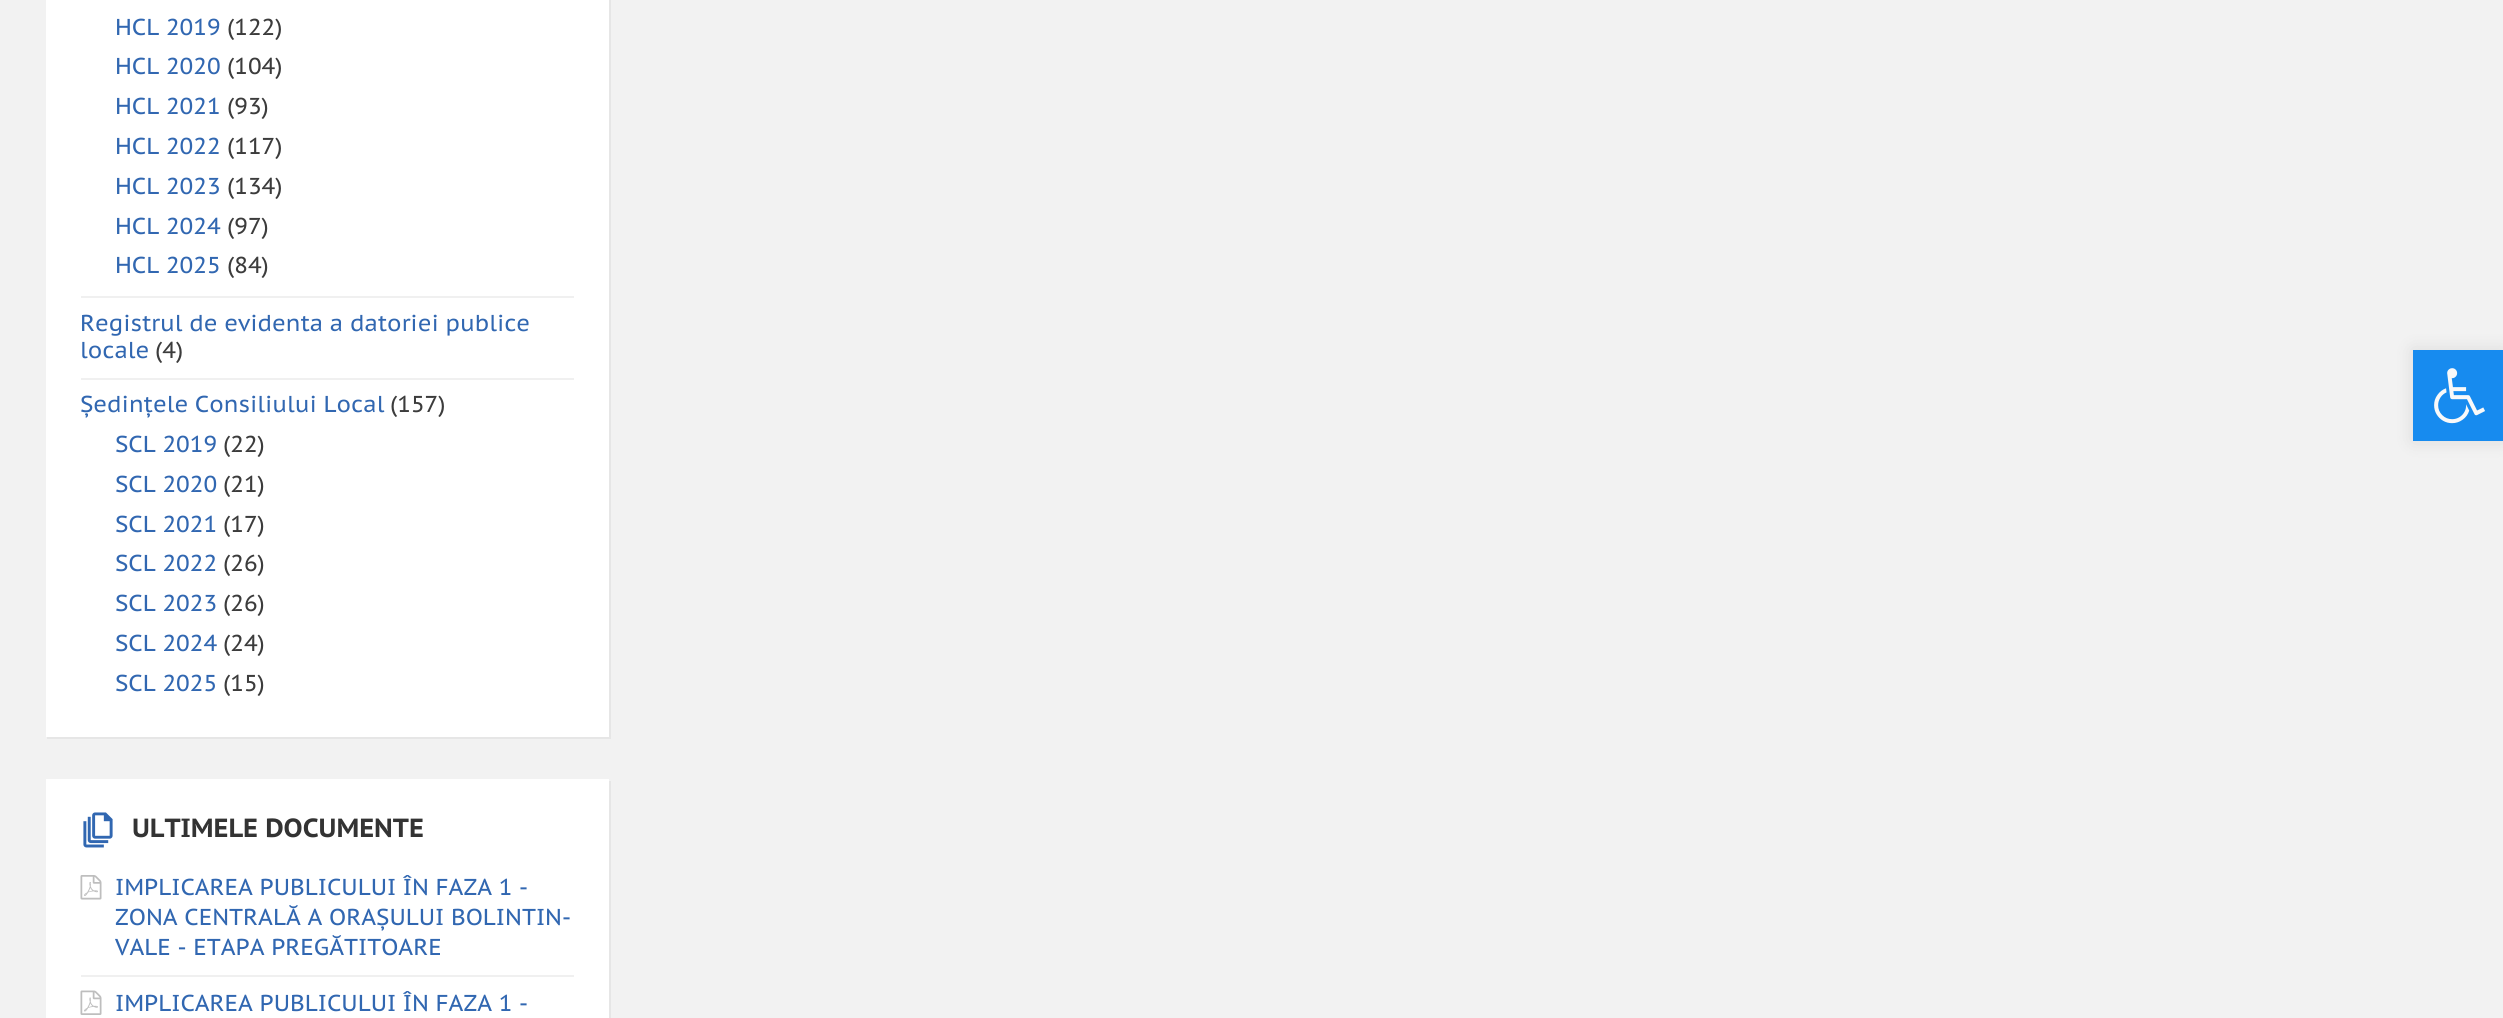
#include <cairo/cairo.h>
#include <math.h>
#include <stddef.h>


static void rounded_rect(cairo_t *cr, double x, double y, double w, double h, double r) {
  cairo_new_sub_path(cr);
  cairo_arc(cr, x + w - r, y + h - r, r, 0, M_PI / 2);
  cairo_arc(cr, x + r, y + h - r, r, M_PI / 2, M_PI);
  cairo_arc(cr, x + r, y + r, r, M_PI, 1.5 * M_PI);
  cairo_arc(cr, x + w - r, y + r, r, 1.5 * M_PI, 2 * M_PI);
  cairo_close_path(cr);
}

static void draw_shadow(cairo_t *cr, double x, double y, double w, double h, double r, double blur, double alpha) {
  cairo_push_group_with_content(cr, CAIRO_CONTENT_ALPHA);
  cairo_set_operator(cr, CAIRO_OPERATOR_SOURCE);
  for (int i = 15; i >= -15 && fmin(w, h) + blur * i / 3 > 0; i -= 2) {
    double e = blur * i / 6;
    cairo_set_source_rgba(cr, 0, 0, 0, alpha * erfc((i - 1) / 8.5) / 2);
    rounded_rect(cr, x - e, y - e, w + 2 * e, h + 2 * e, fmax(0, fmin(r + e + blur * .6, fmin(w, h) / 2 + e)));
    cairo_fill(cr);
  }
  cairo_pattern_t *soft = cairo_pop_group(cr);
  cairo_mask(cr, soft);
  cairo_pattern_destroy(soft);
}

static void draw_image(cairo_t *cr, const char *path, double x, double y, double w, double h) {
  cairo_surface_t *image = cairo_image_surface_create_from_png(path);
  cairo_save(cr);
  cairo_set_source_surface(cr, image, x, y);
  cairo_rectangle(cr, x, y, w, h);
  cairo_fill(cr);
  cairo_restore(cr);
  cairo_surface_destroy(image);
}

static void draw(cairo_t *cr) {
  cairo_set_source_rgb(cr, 242 / 255.0, 242 / 255.0, 242 / 255.0);
  cairo_paint(cr);
  cairo_set_source_rgb(cr, 230 / 255.0, 230 / 255.0, 230 / 255.0);
  cairo_new_path(cr);
  cairo_move_to(cr, 47, 737);
  cairo_line_to(cr, 47, 739);
  cairo_line_to(cr, 611, 739);
  cairo_line_to(cr, 611, -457);
  cairo_line_to(cr, 609, -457);
  cairo_line_to(cr, 609, 737);
  cairo_close_path(cr);
  cairo_fill(cr);
  cairo_set_source_rgb(cr, 1, 1, 1);
  cairo_rectangle(cr, 46, 0, 563, 737);
  cairo_fill(cr);
  cairo_set_source_rgb(cr, 240 / 255.0, 240 / 255.0, 240 / 255.0);
  cairo_rectangle(cr, 81, 296, 493, 2);
  cairo_fill(cr);
  cairo_rectangle(cr, 81, 378, 493, 2);
  cairo_fill(cr);
  cairo_set_source_rgb(cr, 230 / 255.0, 230 / 255.0, 230 / 255.0);
  cairo_new_path(cr);
  cairo_move_to(cr, 47, 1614);
  cairo_line_to(cr, 47, 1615);
  cairo_line_to(cr, 611, 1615);
  cairo_line_to(cr, 611, 781);
  cairo_line_to(cr, 609, 781);
  cairo_line_to(cr, 609, 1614);
  cairo_close_path(cr);
  cairo_fill(cr);
  cairo_set_source_rgb(cr, 1, 1, 1);
  cairo_rectangle(cr, 46, 779, 563, 239);
  cairo_fill(cr);
  draw_image(cr, "images/1.png", 83, 812, 30, 36);
  draw_image(cr, "images/2.png", 80, 875, 22, 25);
  cairo_set_source_rgb(cr, 240 / 255.0, 240 / 255.0, 240 / 255.0);
  cairo_rectangle(cr, 81, 975, 493, 2);
  cairo_fill(cr);
  draw_image(cr, "images/3.png", 80, 990, 22, 25);
  cairo_set_source_rgb(cr, 0, 0, 0);
  draw_shadow(cr, 2413, 350, 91, 91, 0, 9, 0.1);
  cairo_set_source_rgb(cr, 23 / 255.0, 139 / 255.0, 239 / 255.0);
  cairo_rectangle(cr, 2413, 350, 90, 91);
  cairo_fill(cr);
  draw_image(cr, "images/4.png", 2434, 368, 51, 56);
  cairo_select_font_face(cr, "PT Sans Caption", CAIRO_FONT_SLANT_NORMAL, CAIRO_FONT_WEIGHT_NORMAL);
  cairo_set_font_size(cr, 23);
  cairo_set_source_rgb(cr, 49 / 255.0, 103 / 255.0, 177 / 255.0);
  cairo_move_to(cr, 115, 35);
  cairo_show_text(cr, "HCL 2019");
  cairo_set_source_rgb(cr, 60 / 255.0, 60 / 255.0, 60 / 255.0);
  cairo_move_to(cr, 227, 35);
  cairo_show_text(cr, "(122)");
  cairo_set_source_rgb(cr, 49 / 255.0, 103 / 255.0, 177 / 255.0);
  cairo_move_to(cr, 115, 74);
  cairo_show_text(cr, "HCL 2020");
  cairo_set_source_rgb(cr, 60 / 255.0, 60 / 255.0, 60 / 255.0);
  cairo_move_to(cr, 227, 74);
  cairo_show_text(cr, "(104)");
  cairo_set_source_rgb(cr, 49 / 255.0, 103 / 255.0, 177 / 255.0);
  cairo_move_to(cr, 115, 114);
  cairo_show_text(cr, "HCL 2021");
  cairo_set_source_rgb(cr, 60 / 255.0, 60 / 255.0, 60 / 255.0);
  cairo_move_to(cr, 227, 114);
  cairo_show_text(cr, "(93)");
  cairo_set_source_rgb(cr, 49 / 255.0, 103 / 255.0, 177 / 255.0);
  cairo_move_to(cr, 115, 154);
  cairo_show_text(cr, "HCL 2022");
  cairo_set_source_rgb(cr, 60 / 255.0, 60 / 255.0, 60 / 255.0);
  cairo_move_to(cr, 227, 154);
  cairo_show_text(cr, "(117)");
  cairo_set_source_rgb(cr, 49 / 255.0, 103 / 255.0, 177 / 255.0);
  cairo_move_to(cr, 115, 194);
  cairo_show_text(cr, "HCL 2023");
  cairo_set_source_rgb(cr, 60 / 255.0, 60 / 255.0, 60 / 255.0);
  cairo_move_to(cr, 227, 194);
  cairo_show_text(cr, "(134)");
  cairo_set_source_rgb(cr, 49 / 255.0, 103 / 255.0, 177 / 255.0);
  cairo_move_to(cr, 115, 234);
  cairo_show_text(cr, "HCL 2024");
  cairo_set_source_rgb(cr, 60 / 255.0, 60 / 255.0, 60 / 255.0);
  cairo_move_to(cr, 227, 234);
  cairo_show_text(cr, "(97)");
  cairo_set_source_rgb(cr, 49 / 255.0, 103 / 255.0, 177 / 255.0);
  cairo_move_to(cr, 115, 273);
  cairo_show_text(cr, "HCL 2025");
  cairo_set_source_rgb(cr, 60 / 255.0, 60 / 255.0, 60 / 255.0);
  cairo_move_to(cr, 227, 273);
  cairo_show_text(cr, "(84)");
  cairo_set_source_rgb(cr, 49 / 255.0, 103 / 255.0, 177 / 255.0);
  cairo_move_to(cr, 80, 331);
  cairo_show_text(cr, "Registrul de evidenta a datoriei publice");
  cairo_move_to(cr, 80, 358);
  cairo_show_text(cr, "locale");
  cairo_set_source_rgb(cr, 60 / 255.0, 60 / 255.0, 60 / 255.0);
  cairo_move_to(cr, 155, 358);
  cairo_show_text(cr, "(4)");
  cairo_set_source_rgb(cr, 49 / 255.0, 103 / 255.0, 177 / 255.0);
  cairo_move_to(cr, 80, 412);
  cairo_show_text(cr, "Ședințele Consiliului Local");
  cairo_set_source_rgb(cr, 60 / 255.0, 60 / 255.0, 60 / 255.0);
  cairo_move_to(cr, 390, 412);
  cairo_show_text(cr, "(157)");
  cairo_set_source_rgb(cr, 49 / 255.0, 103 / 255.0, 177 / 255.0);
  cairo_move_to(cr, 115, 452);
  cairo_show_text(cr, "SCL 2019");
  cairo_set_source_rgb(cr, 60 / 255.0, 60 / 255.0, 60 / 255.0);
  cairo_move_to(cr, 223, 452);
  cairo_show_text(cr, "(22)");
  cairo_set_source_rgb(cr, 49 / 255.0, 103 / 255.0, 177 / 255.0);
  cairo_move_to(cr, 115, 492);
  cairo_show_text(cr, "SCL 2020");
  cairo_set_source_rgb(cr, 60 / 255.0, 60 / 255.0, 60 / 255.0);
  cairo_move_to(cr, 223, 492);
  cairo_show_text(cr, "(21)");
  cairo_set_source_rgb(cr, 49 / 255.0, 103 / 255.0, 177 / 255.0);
  cairo_move_to(cr, 115, 532);
  cairo_show_text(cr, "SCL 2021");
  cairo_set_source_rgb(cr, 60 / 255.0, 60 / 255.0, 60 / 255.0);
  cairo_move_to(cr, 223, 532);
  cairo_show_text(cr, "(17)");
  cairo_set_source_rgb(cr, 49 / 255.0, 103 / 255.0, 177 / 255.0);
  cairo_move_to(cr, 115, 571);
  cairo_show_text(cr, "SCL 2022");
  cairo_set_source_rgb(cr, 60 / 255.0, 60 / 255.0, 60 / 255.0);
  cairo_move_to(cr, 223, 571);
  cairo_show_text(cr, "(26)");
  cairo_set_source_rgb(cr, 49 / 255.0, 103 / 255.0, 177 / 255.0);
  cairo_move_to(cr, 115, 611);
  cairo_show_text(cr, "SCL 2023");
  cairo_set_source_rgb(cr, 60 / 255.0, 60 / 255.0, 60 / 255.0);
  cairo_move_to(cr, 223, 611);
  cairo_show_text(cr, "(26)");
  cairo_set_source_rgb(cr, 49 / 255.0, 103 / 255.0, 177 / 255.0);
  cairo_move_to(cr, 115, 651);
  cairo_show_text(cr, "SCL 2024");
  cairo_set_source_rgb(cr, 60 / 255.0, 60 / 255.0, 60 / 255.0);
  cairo_move_to(cr, 223, 651);
  cairo_show_text(cr, "(24)");
  cairo_set_source_rgb(cr, 49 / 255.0, 103 / 255.0, 177 / 255.0);
  cairo_move_to(cr, 115, 691);
  cairo_show_text(cr, "SCL 2025");
  cairo_set_source_rgb(cr, 60 / 255.0, 60 / 255.0, 60 / 255.0);
  cairo_move_to(cr, 223, 691);
  cairo_show_text(cr, "(15)");
  cairo_select_font_face(cr, "PT Sans Caption", CAIRO_FONT_SLANT_NORMAL, CAIRO_FONT_WEIGHT_BOLD);
  cairo_set_font_size(cr, 26.25);
  cairo_set_source_rgb(cr, 51 / 255.0, 51 / 255.0, 51 / 255.0);
  cairo_move_to(cr, 132, 837);
  cairo_show_text(cr, "ULTIMELE DOCUMENTE");
  cairo_select_font_face(cr, "PT Sans Caption", CAIRO_FONT_SLANT_NORMAL, CAIRO_FONT_WEIGHT_NORMAL);
  cairo_set_font_size(cr, 23);
  cairo_set_source_rgb(cr, 49 / 255.0, 103 / 255.0, 177 / 255.0);
  cairo_move_to(cr, 115, 895);
  cairo_show_text(cr, "IMPLICAREA PUBLICULUI ÎN FAZA 1 -");
  cairo_move_to(cr, 115, 925);
  cairo_show_text(cr, "ZONA CENTRALĂ A ORAȘULUI BOLINTIN-");
  cairo_move_to(cr, 115, 955);
  cairo_show_text(cr, "VALE - ETAPA PREGĂTITOARE");
  cairo_move_to(cr, 115, 1011);
  cairo_show_text(cr, "IMPLICAREA PUBLICULUI ÎN FAZA 1 -");
}

int main(void) {
  cairo_surface_t *surface = cairo_image_surface_create(CAIRO_FORMAT_RGB24, 2503, 1018);
  cairo_t *cr = cairo_create(surface);
  cairo_font_options_t *options = cairo_font_options_create();
  cairo_font_options_set_hint_metrics(options, CAIRO_HINT_METRICS_OFF);
  cairo_font_options_set_hint_style(options, CAIRO_HINT_STYLE_NONE);
  cairo_set_font_options(cr, options);
  cairo_set_miter_limit(cr, 4);
  draw(cr);
  cairo_surface_write_to_png(surface, "out.png");
  cairo_font_options_destroy(options);
  cairo_destroy(cr);
  cairo_surface_destroy(surface);
  return 0;
}
